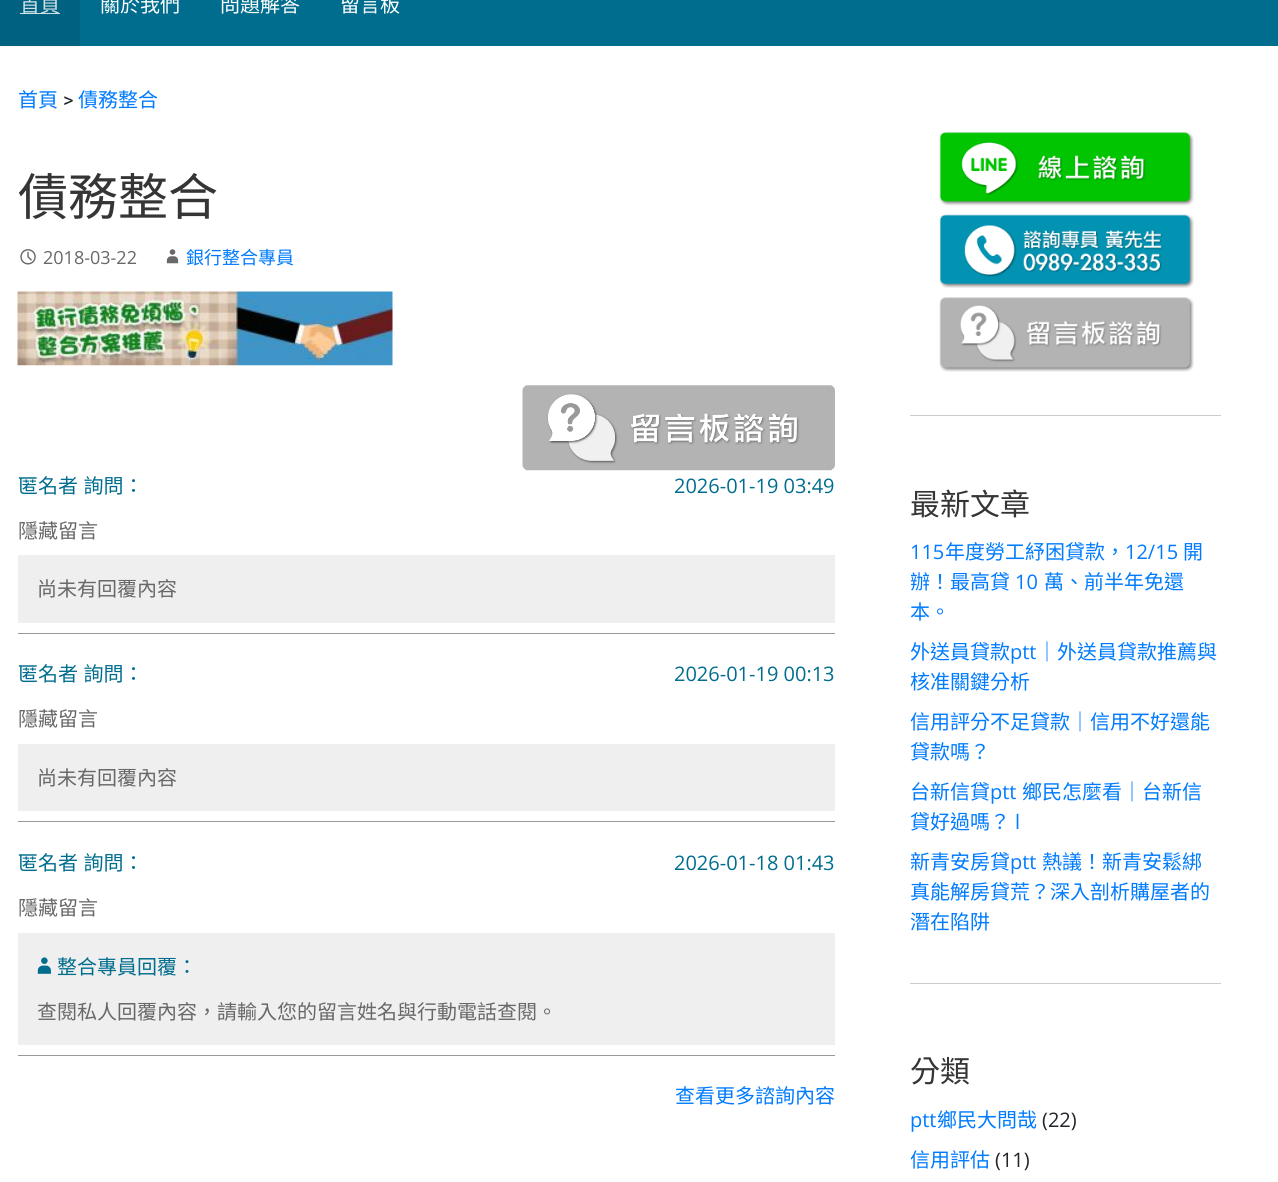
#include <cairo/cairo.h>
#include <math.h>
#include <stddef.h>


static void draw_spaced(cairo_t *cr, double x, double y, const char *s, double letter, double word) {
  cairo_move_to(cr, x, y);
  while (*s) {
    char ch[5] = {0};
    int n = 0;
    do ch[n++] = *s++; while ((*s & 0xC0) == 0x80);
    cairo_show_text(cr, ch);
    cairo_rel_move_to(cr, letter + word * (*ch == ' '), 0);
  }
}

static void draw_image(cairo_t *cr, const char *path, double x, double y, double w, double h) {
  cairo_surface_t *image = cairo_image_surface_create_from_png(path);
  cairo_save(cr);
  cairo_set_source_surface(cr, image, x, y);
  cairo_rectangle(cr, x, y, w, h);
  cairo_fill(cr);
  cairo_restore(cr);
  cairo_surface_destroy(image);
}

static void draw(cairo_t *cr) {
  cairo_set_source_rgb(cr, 1, 1, 1);
  cairo_paint(cr);
  cairo_set_source_rgb(cr, 0, 109 / 255.0, 142 / 255.0);
  cairo_rectangle(cr, 80, 0, 1198, 46);
  cairo_fill(cr);
  cairo_set_source_rgb(cr, 0, 98 / 255.0, 128 / 255.0);
  cairo_rectangle(cr, 0, 0, 80, 46);
  cairo_fill(cr);
  cairo_set_source_rgb(cr, 204 / 255.0, 224 / 255.0, 230 / 255.0);
  cairo_rectangle(cr, 20, 13, 40, 1);
  cairo_fill(cr);
  draw_image(cr, "images/1.png", 20, 249, 16, 16);
  draw_image(cr, "images/2.png", 166, 249, 13, 15);
  draw_image(cr, "images/3.png", 17, 291, 376, 75);
  draw_image(cr, "images/4.png", 522, 385, 313, 86);
  cairo_set_source_rgb(cr, 153 / 255.0, 153 / 255.0, 153 / 255.0);
  cairo_rectangle(cr, 18, 633, 817, 1);
  cairo_fill(cr);
  cairo_set_source_rgb(cr, 239 / 255.0, 239 / 255.0, 239 / 255.0);
  cairo_rectangle(cr, 18, 555, 817, 68);
  cairo_fill(cr);
  cairo_set_source_rgb(cr, 153 / 255.0, 153 / 255.0, 153 / 255.0);
  cairo_rectangle(cr, 18, 821, 817, 1);
  cairo_fill(cr);
  cairo_set_source_rgb(cr, 239 / 255.0, 239 / 255.0, 239 / 255.0);
  cairo_rectangle(cr, 18, 744, 817, 67);
  cairo_fill(cr);
  cairo_set_source_rgb(cr, 153 / 255.0, 153 / 255.0, 153 / 255.0);
  cairo_rectangle(cr, 18, 1055, 817, 1);
  cairo_fill(cr);
  cairo_set_source_rgb(cr, 239 / 255.0, 239 / 255.0, 239 / 255.0);
  cairo_rectangle(cr, 18, 933, 817, 112);
  cairo_fill(cr);
  draw_image(cr, "images/5.png", 37, 957, 14, 17);
  cairo_set_source_rgb(cr, 204 / 255.0, 204 / 255.0, 204 / 255.0);
  cairo_rectangle(cr, 910, 415, 311, 1);
  cairo_fill(cr);
  draw_image(cr, "images/6.png", 939, 131, 255, 75);
  draw_image(cr, "images/7.png", 939, 214, 255, 74);
  draw_image(cr, "images/8.png", 939, 297, 255, 75);
  cairo_rectangle(cr, 910, 983, 311, 1);
  cairo_fill(cr);
  cairo_select_font_face(cr, "Noto Sans CJK TC", CAIRO_FONT_SLANT_NORMAL, CAIRO_FONT_WEIGHT_NORMAL);
  cairo_set_font_size(cr, 20);
  cairo_set_source_rgb(cr, 205 / 255.0, 224 / 255.0, 230 / 255.0);
  cairo_move_to(cr, 20, 12);
  cairo_show_text(cr, "首頁");
  cairo_set_source_rgb(cr, 1, 1, 1);
  cairo_move_to(cr, 100, 12);
  cairo_show_text(cr, "關於我們");
  cairo_move_to(cr, 220, 12);
  cairo_show_text(cr, "問題解答");
  cairo_move_to(cr, 340, 12);
  cairo_show_text(cr, "留言板");
  cairo_set_source_rgb(cr, 0, 123 / 255.0, 1);
  cairo_move_to(cr, 18, 107);
  cairo_show_text(cr, "首頁");
  cairo_select_font_face(cr, "Roboto", CAIRO_FONT_SLANT_NORMAL, CAIRO_FONT_WEIGHT_NORMAL);
  cairo_set_source_rgb(cr, 33 / 255.0, 37 / 255.0, 41 / 255.0);
  cairo_move_to(cr, 63, 107);
  cairo_show_text(cr, ">");
  cairo_select_font_face(cr, "Noto Sans CJK TC", CAIRO_FONT_SLANT_NORMAL, CAIRO_FONT_WEIGHT_NORMAL);
  cairo_set_source_rgb(cr, 0, 123 / 255.0, 1);
  cairo_move_to(cr, 78, 107);
  cairo_show_text(cr, "債務整合");
  cairo_set_font_size(cr, 50);
  cairo_set_source_rgb(cr, 53 / 255.0, 53 / 255.0, 53 / 255.0);
  cairo_move_to(cr, 18, 215);
  cairo_show_text(cr, "債務整合");
  cairo_select_font_face(cr, "Open Sans", CAIRO_FONT_SLANT_NORMAL, CAIRO_FONT_WEIGHT_NORMAL);
  cairo_set_font_size(cr, 18);
  cairo_set_source_rgb(cr, 104 / 255.0, 104 / 255.0, 104 / 255.0);
  cairo_move_to(cr, 43, 264);
  cairo_show_text(cr, "2018-03-22");
  cairo_select_font_face(cr, "Noto Sans CJK TC", CAIRO_FONT_SLANT_NORMAL, CAIRO_FONT_WEIGHT_NORMAL);
  cairo_set_source_rgb(cr, 0, 123 / 255.0, 1);
  cairo_move_to(cr, 186, 264);
  cairo_show_text(cr, "銀行整合專員");
  cairo_set_font_size(cr, 20);
  cairo_set_source_rgb(cr, 0, 109 / 255.0, 142 / 255.0);
  draw_spaced(cr, 18, 493, "匿名者 詢問：", 0, 1);
  cairo_select_font_face(cr, "Open Sans", CAIRO_FONT_SLANT_NORMAL, CAIRO_FONT_WEIGHT_NORMAL);
  cairo_move_to(cr, 674, 493);
  cairo_show_text(cr, "2026-01-19 03:49");
  cairo_select_font_face(cr, "Noto Sans CJK TC", CAIRO_FONT_SLANT_NORMAL, CAIRO_FONT_WEIGHT_NORMAL);
  cairo_set_source_rgb(cr, 104 / 255.0, 104 / 255.0, 104 / 255.0);
  cairo_move_to(cr, 18, 538);
  cairo_show_text(cr, "隱藏留言");
  cairo_move_to(cr, 37, 596);
  cairo_show_text(cr, "尚未有回覆內容");
  cairo_set_source_rgb(cr, 0, 109 / 255.0, 142 / 255.0);
  draw_spaced(cr, 18, 681, "匿名者 詢問：", 0, 1);
  cairo_select_font_face(cr, "Open Sans", CAIRO_FONT_SLANT_NORMAL, CAIRO_FONT_WEIGHT_NORMAL);
  cairo_move_to(cr, 674, 681);
  cairo_show_text(cr, "2026-01-19 00:13");
  cairo_select_font_face(cr, "Noto Sans CJK TC", CAIRO_FONT_SLANT_NORMAL, CAIRO_FONT_WEIGHT_NORMAL);
  cairo_set_source_rgb(cr, 104 / 255.0, 104 / 255.0, 104 / 255.0);
  cairo_move_to(cr, 18, 726);
  cairo_show_text(cr, "隱藏留言");
  cairo_move_to(cr, 37, 785);
  cairo_show_text(cr, "尚未有回覆內容");
  cairo_set_source_rgb(cr, 0, 109 / 255.0, 142 / 255.0);
  draw_spaced(cr, 18, 870, "匿名者 詢問：", 0, 1);
  cairo_select_font_face(cr, "Open Sans", CAIRO_FONT_SLANT_NORMAL, CAIRO_FONT_WEIGHT_NORMAL);
  cairo_move_to(cr, 674, 870);
  cairo_show_text(cr, "2026-01-18 01:43");
  cairo_select_font_face(cr, "Noto Sans CJK TC", CAIRO_FONT_SLANT_NORMAL, CAIRO_FONT_WEIGHT_NORMAL);
  cairo_set_source_rgb(cr, 104 / 255.0, 104 / 255.0, 104 / 255.0);
  cairo_move_to(cr, 18, 915);
  cairo_show_text(cr, "隱藏留言");
  cairo_set_source_rgb(cr, 0, 109 / 255.0, 142 / 255.0);
  cairo_move_to(cr, 57, 974);
  cairo_show_text(cr, "整合專員回覆：");
  cairo_set_source_rgb(cr, 104 / 255.0, 104 / 255.0, 104 / 255.0);
  cairo_move_to(cr, 37, 1019);
  cairo_show_text(cr, "查閱私人回覆內容，請輸入您的留言姓名與行動電話查閱。");
  cairo_set_source_rgb(cr, 0, 123 / 255.0, 1);
  cairo_move_to(cr, 675, 1103);
  cairo_show_text(cr, "查看更多諮詢內容");
  cairo_set_font_size(cr, 30);
  cairo_set_source_rgb(cr, 53 / 255.0, 53 / 255.0, 53 / 255.0);
  cairo_move_to(cr, 910, 515);
  cairo_show_text(cr, "最新文章");
  cairo_select_font_face(cr, "Open Sans", CAIRO_FONT_SLANT_NORMAL, CAIRO_FONT_WEIGHT_NORMAL);
  cairo_set_font_size(cr, 20);
  cairo_set_source_rgb(cr, 0, 123 / 255.0, 1);
  cairo_move_to(cr, 910, 559);
  cairo_show_text(cr, "115");
  cairo_select_font_face(cr, "Noto Sans CJK TC", CAIRO_FONT_SLANT_NORMAL, CAIRO_FONT_WEIGHT_NORMAL);
  cairo_move_to(cr, 945, 559);
  cairo_show_text(cr, "年度勞工紓困貸款，");
  cairo_select_font_face(cr, "Open Sans", CAIRO_FONT_SLANT_NORMAL, CAIRO_FONT_WEIGHT_NORMAL);
  cairo_move_to(cr, 1125, 559);
  cairo_show_text(cr, "12/15");
  cairo_select_font_face(cr, "Noto Sans CJK TC", CAIRO_FONT_SLANT_NORMAL, CAIRO_FONT_WEIGHT_NORMAL);
  cairo_move_to(cr, 1183, 559);
  cairo_show_text(cr, "開");
  cairo_move_to(cr, 910, 589);
  cairo_show_text(cr, "辦！最高貸");
  cairo_select_font_face(cr, "Open Sans", CAIRO_FONT_SLANT_NORMAL, CAIRO_FONT_WEIGHT_NORMAL);
  cairo_move_to(cr, 1015, 589);
  cairo_show_text(cr, "10");
  cairo_select_font_face(cr, "Noto Sans CJK TC", CAIRO_FONT_SLANT_NORMAL, CAIRO_FONT_WEIGHT_NORMAL);
  cairo_move_to(cr, 1044, 589);
  cairo_show_text(cr, "萬、前半年免還");
  cairo_move_to(cr, 910, 619);
  cairo_show_text(cr, "本。");
  cairo_move_to(cr, 910, 659);
  cairo_show_text(cr, "外送員貸款");
  cairo_select_font_face(cr, "Open Sans", CAIRO_FONT_SLANT_NORMAL, CAIRO_FONT_WEIGHT_NORMAL);
  cairo_move_to(cr, 1010, 659);
  cairo_show_text(cr, "ptt");
  cairo_select_font_face(cr, "Noto Sans CJK TC", CAIRO_FONT_SLANT_NORMAL, CAIRO_FONT_WEIGHT_NORMAL);
  cairo_move_to(cr, 1037, 659);
  cairo_show_text(cr, "｜外送員貸款推薦與");
  cairo_move_to(cr, 910, 689);
  cairo_show_text(cr, "核准關鍵分析");
  cairo_move_to(cr, 910, 729);
  cairo_show_text(cr, "信用評分不足貸款｜信用不好還能");
  cairo_move_to(cr, 910, 759);
  cairo_show_text(cr, "貸款嗎？");
  cairo_move_to(cr, 910, 799);
  cairo_show_text(cr, "台新信貸");
  cairo_select_font_face(cr, "Open Sans", CAIRO_FONT_SLANT_NORMAL, CAIRO_FONT_WEIGHT_NORMAL);
  cairo_move_to(cr, 990, 799);
  cairo_show_text(cr, "ptt");
  cairo_select_font_face(cr, "Noto Sans CJK TC", CAIRO_FONT_SLANT_NORMAL, CAIRO_FONT_WEIGHT_NORMAL);
  cairo_move_to(cr, 1022, 799);
  cairo_show_text(cr, "鄉民怎麼看｜台新信");
  cairo_move_to(cr, 910, 829);
  cairo_show_text(cr, "貸好過嗎？");
  cairo_select_font_face(cr, "Open Sans", CAIRO_FONT_SLANT_NORMAL, CAIRO_FONT_WEIGHT_NORMAL);
  cairo_move_to(cr, 1015, 829);
  cairo_show_text(cr, "l");
  cairo_select_font_face(cr, "Noto Sans CJK TC", CAIRO_FONT_SLANT_NORMAL, CAIRO_FONT_WEIGHT_NORMAL);
  cairo_move_to(cr, 910, 869);
  cairo_show_text(cr, "新青安房貸");
  cairo_select_font_face(cr, "Open Sans", CAIRO_FONT_SLANT_NORMAL, CAIRO_FONT_WEIGHT_NORMAL);
  cairo_move_to(cr, 1010, 869);
  cairo_show_text(cr, "ptt");
  cairo_select_font_face(cr, "Noto Sans CJK TC", CAIRO_FONT_SLANT_NORMAL, CAIRO_FONT_WEIGHT_NORMAL);
  cairo_move_to(cr, 1042, 869);
  cairo_show_text(cr, "熱議！新青安鬆綁");
  cairo_move_to(cr, 910, 899);
  cairo_show_text(cr, "真能解房貸荒？深入剖析購屋者的");
  cairo_move_to(cr, 910, 929);
  cairo_show_text(cr, "潛在陷阱");
  cairo_set_font_size(cr, 30);
  cairo_set_source_rgb(cr, 53 / 255.0, 53 / 255.0, 53 / 255.0);
  cairo_move_to(cr, 910, 1082);
  cairo_show_text(cr, "分類");
  cairo_select_font_face(cr, "Open Sans", CAIRO_FONT_SLANT_NORMAL, CAIRO_FONT_WEIGHT_NORMAL);
  cairo_set_font_size(cr, 20);
  cairo_set_source_rgb(cr, 0, 123 / 255.0, 1);
  cairo_move_to(cr, 910, 1127);
  cairo_show_text(cr, "ptt");
  cairo_select_font_face(cr, "Noto Sans CJK TC", CAIRO_FONT_SLANT_NORMAL, CAIRO_FONT_WEIGHT_NORMAL);
  cairo_move_to(cr, 937, 1127);
  cairo_show_text(cr, "鄉民大問哉");
  cairo_select_font_face(cr, "Open Sans", CAIRO_FONT_SLANT_NORMAL, CAIRO_FONT_WEIGHT_NORMAL);
  cairo_set_source_rgb(cr, 33 / 255.0, 37 / 255.0, 41 / 255.0);
  cairo_move_to(cr, 1042, 1127);
  cairo_show_text(cr, "(22)");
  cairo_select_font_face(cr, "Noto Sans CJK TC", CAIRO_FONT_SLANT_NORMAL, CAIRO_FONT_WEIGHT_NORMAL);
  cairo_set_source_rgb(cr, 0, 123 / 255.0, 1);
  cairo_move_to(cr, 910, 1167);
  cairo_show_text(cr, "信用評估");
  cairo_select_font_face(cr, "Open Sans", CAIRO_FONT_SLANT_NORMAL, CAIRO_FONT_WEIGHT_NORMAL);
  cairo_set_source_rgb(cr, 33 / 255.0, 37 / 255.0, 41 / 255.0);
  cairo_move_to(cr, 995, 1167);
  cairo_show_text(cr, "(11)");
}

int main(void) {
  cairo_surface_t *surface = cairo_image_surface_create(CAIRO_FORMAT_RGB24, 1278, 1182);
  cairo_t *cr = cairo_create(surface);
  cairo_font_options_t *options = cairo_font_options_create();
  cairo_font_options_set_hint_metrics(options, CAIRO_HINT_METRICS_OFF);
  cairo_font_options_set_hint_style(options, CAIRO_HINT_STYLE_NONE);
  cairo_set_font_options(cr, options);
  cairo_set_miter_limit(cr, 4);
  draw(cr);
  cairo_surface_write_to_png(surface, "out.png");
  cairo_font_options_destroy(options);
  cairo_destroy(cr);
  cairo_surface_destroy(surface);
  return 0;
}
